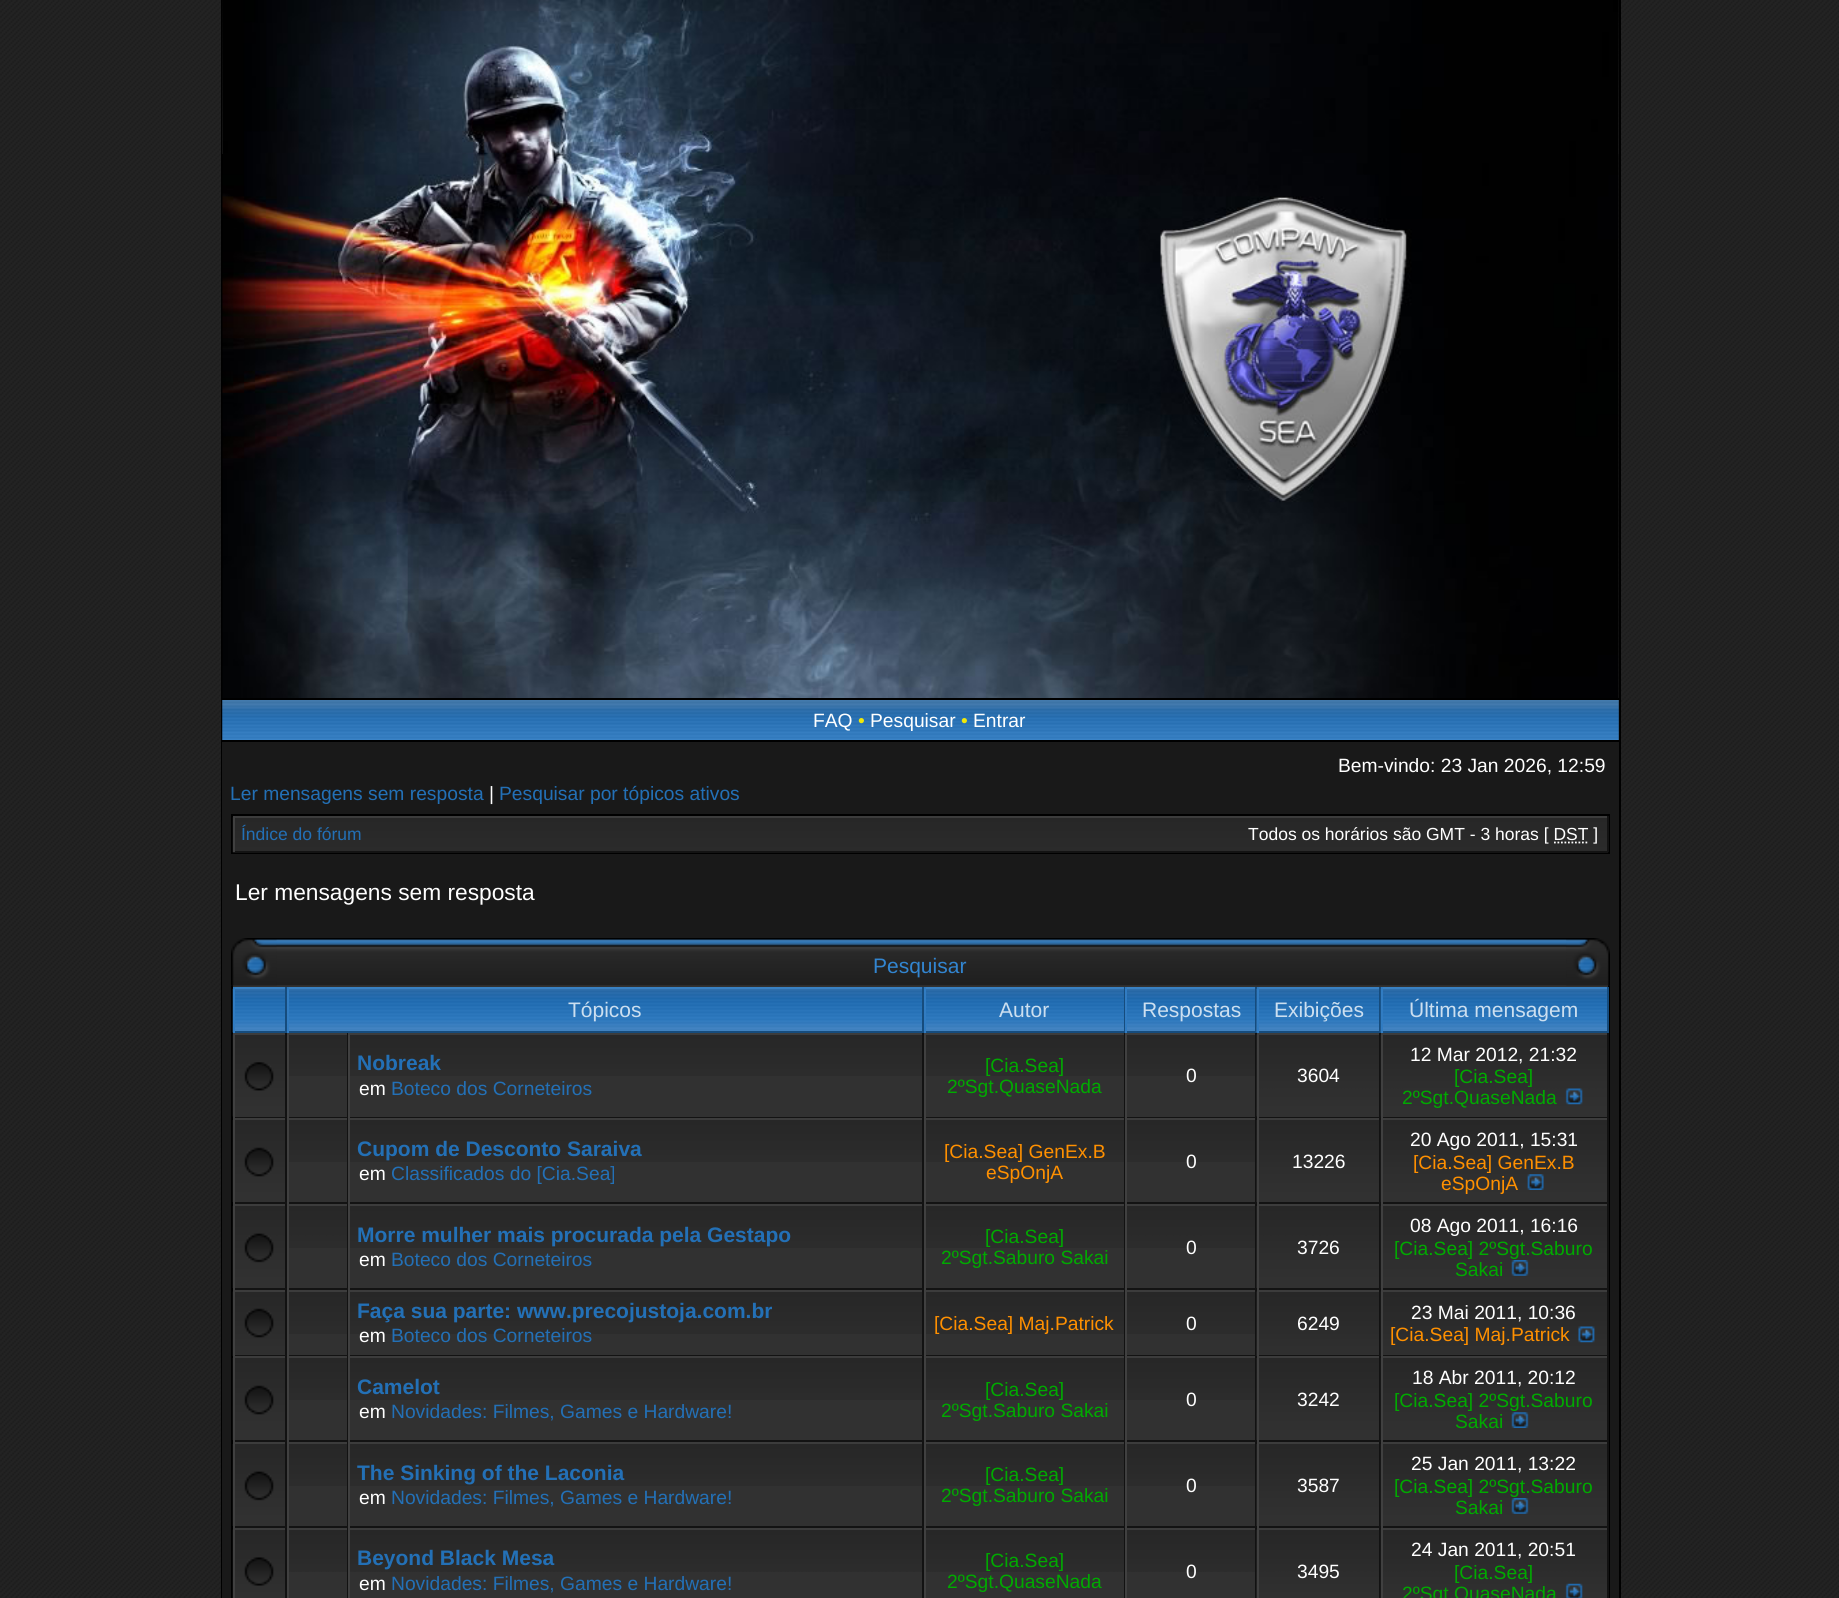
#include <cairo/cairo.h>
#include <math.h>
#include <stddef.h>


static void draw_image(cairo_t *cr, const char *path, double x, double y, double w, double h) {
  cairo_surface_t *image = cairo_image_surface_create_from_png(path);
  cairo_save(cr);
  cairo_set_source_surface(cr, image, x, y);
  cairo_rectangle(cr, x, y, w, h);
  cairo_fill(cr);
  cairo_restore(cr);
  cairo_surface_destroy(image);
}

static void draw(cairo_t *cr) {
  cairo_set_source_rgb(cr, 1, 1, 1);
  cairo_paint(cr);
  draw_image(cr, "images/1.png", 0, 0, 1839, 1598);
  cairo_set_source_rgb(cr, 0, 0, 0);
  cairo_rectangle(cr, 1619, 0, 2, 1598);
  cairo_fill(cr);
  cairo_rectangle(cr, 221, 0, 2, 1598);
  cairo_fill(cr);
  draw_image(cr, "images/2.png", 222, 0, 1397, 154);
  draw_image(cr, "images/3.png", 222, 0, 1397, 698);
  draw_image(cr, "images/4.png", 222, 700, 1397, 40);
  cairo_rectangle(cr, 222, 698, 1397, 2);
  cairo_fill(cr);
  cairo_rectangle(cr, 222, 740, 1397, 2);
  cairo_fill(cr);
  cairo_set_source_rgb(cr, 25 / 255.0, 25 / 255.0, 25 / 255.0);
  cairo_rectangle(cr, 222, 742, 1397, 856);
  cairo_fill(cr);
  cairo_rectangle(cr, 232, 815, 1377, 38);
  cairo_set_source_rgb(cr, 0, 0, 0);
  cairo_stroke(cr);
  draw_image(cr, "images/5.png", 232, 817, 1377, 36);
  cairo_set_source_rgb(cr, 60 / 255.0, 60 / 255.0, 60 / 255.0);
  cairo_rectangle(cr, 233, 816, 1375, 2);
  cairo_fill(cr);
  cairo_set_source_rgb(cr, 18 / 255.0, 18 / 255.0, 18 / 255.0);
  cairo_rectangle(cr, 1607, 816, 2, 36);
  cairo_fill(cr);
  cairo_set_source_rgb(cr, 19 / 255.0, 19 / 255.0, 19 / 255.0);
  cairo_rectangle(cr, 233, 851, 1375, 2);
  cairo_fill(cr);
  cairo_set_source_rgb(cr, 64 / 255.0, 64 / 255.0, 64 / 255.0);
  cairo_rectangle(cr, 233, 816, 2, 36);
  cairo_fill(cr);
  cairo_new_path(cr);
  cairo_move_to(cr, 1554, 842.5);
  cairo_line_to(cr, 1589, 842.5);
  cairo_set_source_rgb(cr, 1, 1, 1);
  cairo_set_line_width(cr, 1.8);
  cairo_set_dash(cr, (double[]){1.75, 1.75}, 2, 0);
  cairo_stroke(cr);
  cairo_set_source_rgb(cr, 49 / 255.0, 49 / 255.0, 49 / 255.0);
  cairo_rectangle(cr, 233, 985, 1375, 613);
  cairo_fill(cr);
  cairo_rectangle(cr, 232, 939, 1377, 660);
  cairo_set_source_rgb(cr, 0, 0, 0);
  cairo_set_line_width(cr, 2);
  cairo_set_dash(cr, NULL, 0, 0);
  cairo_stroke(cr);
  draw_image(cr, "images/6.png", 231, 939, 1379, 47);
  draw_image(cr, "images/7.png", 231, 938, 46, 48);
  draw_image(cr, "images/8.png", 1566, 938, 44, 48);
  draw_image(cr, "images/9.png", 232, 988, 53, 45);
  cairo_set_source_rgb(cr, 57 / 255.0, 129 / 255.0, 195 / 255.0);
  cairo_rectangle(cr, 233, 987, 1024, 2);
  cairo_fill(cr);
  cairo_set_source_rgb(cr, 22 / 255.0, 76 / 255.0, 125 / 255.0);
  cairo_rectangle(cr, 285, 987, 2, 46);
  cairo_fill(cr);
  cairo_rectangle(cr, 233, 1031, 54, 2);
  cairo_fill(cr);
  cairo_set_source_rgb(cr, 49 / 255.0, 124 / 255.0, 194 / 255.0);
  cairo_rectangle(cr, 233, 987, 2, 46);
  cairo_fill(cr);
  cairo_set_source_rgb(cr, 22 / 255.0, 76 / 255.0, 125 / 255.0);
  cairo_rectangle(cr, 1255, 987, 2, 46);
  cairo_fill(cr);
  cairo_rectangle(cr, 1125, 1031, 132, 2);
  cairo_fill(cr);
  draw_image(cr, "images/14.png", 1256, 988, 123, 45);
  cairo_set_source_rgb(cr, 57 / 255.0, 129 / 255.0, 195 / 255.0);
  cairo_rectangle(cr, 1257, 987, 124, 2);
  cairo_fill(cr);
  cairo_set_source_rgb(cr, 22 / 255.0, 76 / 255.0, 125 / 255.0);
  cairo_rectangle(cr, 1379, 987, 2, 46);
  cairo_fill(cr);
  cairo_rectangle(cr, 1257, 1031, 124, 2);
  cairo_fill(cr);
  draw_image(cr, "images/10.png", 1380, 988, 227, 45);
  cairo_set_source_rgb(cr, 57 / 255.0, 129 / 255.0, 195 / 255.0);
  cairo_rectangle(cr, 1381, 987, 227, 2);
  cairo_fill(cr);
  cairo_set_source_rgb(cr, 22 / 255.0, 76 / 255.0, 125 / 255.0);
  cairo_rectangle(cr, 1607, 987, 2, 46);
  cairo_fill(cr);
  cairo_rectangle(cr, 1381, 1031, 227, 2);
  cairo_fill(cr);
  cairo_set_source_rgb(cr, 49 / 255.0, 124 / 255.0, 194 / 255.0);
  cairo_rectangle(cr, 1381, 987, 2, 46);
  cairo_fill(cr);
  draw_image(cr, "images/11.png", 289, 989, 633, 42);
  cairo_set_source_rgb(cr, 22 / 255.0, 76 / 255.0, 125 / 255.0);
  cairo_rectangle(cr, 922, 987, 2, 46);
  cairo_fill(cr);
  cairo_rectangle(cr, 287, 1031, 637, 2);
  cairo_fill(cr);
  cairo_set_source_rgb(cr, 49 / 255.0, 124 / 255.0, 194 / 255.0);
  cairo_rectangle(cr, 287, 987, 2, 46);
  cairo_fill(cr);
  draw_image(cr, "images/12.png", 926, 989, 198, 42);
  cairo_set_source_rgb(cr, 22 / 255.0, 76 / 255.0, 125 / 255.0);
  cairo_rectangle(cr, 1124, 987, 1, 46);
  cairo_fill(cr);
  cairo_rectangle(cr, 924, 1031, 201, 2);
  cairo_fill(cr);
  cairo_set_source_rgb(cr, 49 / 255.0, 124 / 255.0, 194 / 255.0);
  cairo_rectangle(cr, 924, 987, 2, 46);
  cairo_fill(cr);
  draw_image(cr, "images/13.png", 1127, 989, 128, 42);
  cairo_rectangle(cr, 1125, 987, 2, 46);
  cairo_fill(cr);
  cairo_rectangle(cr, 1257, 987, 2, 46);
  cairo_fill(cr);
  draw_image(cr, "images/15.png", 232, 1034, 53, 83);
  cairo_set_source_rgb(cr, 60 / 255.0, 60 / 255.0, 60 / 255.0);
  cairo_rectangle(cr, 233, 1033, 1024, 2);
  cairo_fill(cr);
  cairo_set_source_rgb(cr, 18 / 255.0, 18 / 255.0, 18 / 255.0);
  cairo_rectangle(cr, 285, 1033, 2, 85);
  cairo_fill(cr);
  cairo_set_source_rgb(cr, 19 / 255.0, 19 / 255.0, 19 / 255.0);
  cairo_rectangle(cr, 233, 1117, 54, 1);
  cairo_fill(cr);
  cairo_set_source_rgb(cr, 64 / 255.0, 64 / 255.0, 64 / 255.0);
  cairo_rectangle(cr, 233, 1033, 2, 85);
  cairo_fill(cr);
  draw_image(cr, "images/16.png", 244, 1062, 30, 29);
  draw_image(cr, "images/17.png", 289, 1035, 58, 41);
  cairo_set_source_rgb(cr, 18 / 255.0, 18 / 255.0, 18 / 255.0);
  cairo_rectangle(cr, 347, 1033, 1, 85);
  cairo_fill(cr);
  cairo_set_source_rgb(cr, 19 / 255.0, 19 / 255.0, 19 / 255.0);
  cairo_rectangle(cr, 287, 1117, 61, 1);
  cairo_fill(cr);
  cairo_set_source_rgb(cr, 64 / 255.0, 64 / 255.0, 64 / 255.0);
  cairo_rectangle(cr, 287, 1033, 2, 85);
  cairo_fill(cr);
  draw_image(cr, "images/18.png", 350, 1035, 572, 41);
  cairo_set_source_rgb(cr, 18 / 255.0, 18 / 255.0, 18 / 255.0);
  cairo_rectangle(cr, 922, 1033, 2, 85);
  cairo_fill(cr);
  cairo_set_source_rgb(cr, 19 / 255.0, 19 / 255.0, 19 / 255.0);
  cairo_rectangle(cr, 348, 1117, 576, 1);
  cairo_fill(cr);
  cairo_set_source_rgb(cr, 64 / 255.0, 64 / 255.0, 64 / 255.0);
  cairo_rectangle(cr, 348, 1033, 2, 85);
  cairo_fill(cr);
  draw_image(cr, "images/19.png", 926, 1035, 198, 41);
  cairo_set_source_rgb(cr, 18 / 255.0, 18 / 255.0, 18 / 255.0);
  cairo_rectangle(cr, 1124, 1033, 1, 85);
  cairo_fill(cr);
  cairo_set_source_rgb(cr, 19 / 255.0, 19 / 255.0, 19 / 255.0);
  cairo_rectangle(cr, 924, 1117, 201, 1);
  cairo_fill(cr);
  cairo_set_source_rgb(cr, 64 / 255.0, 64 / 255.0, 64 / 255.0);
  cairo_rectangle(cr, 924, 1033, 2, 85);
  cairo_fill(cr);
  draw_image(cr, "images/20.png", 1127, 1035, 128, 41);
  cairo_set_source_rgb(cr, 18 / 255.0, 18 / 255.0, 18 / 255.0);
  cairo_rectangle(cr, 1255, 1033, 2, 85);
  cairo_fill(cr);
  cairo_set_source_rgb(cr, 19 / 255.0, 19 / 255.0, 19 / 255.0);
  cairo_rectangle(cr, 1125, 1117, 132, 1);
  cairo_fill(cr);
  cairo_set_source_rgb(cr, 64 / 255.0, 64 / 255.0, 64 / 255.0);
  cairo_rectangle(cr, 1125, 1033, 2, 85);
  cairo_fill(cr);
  draw_image(cr, "images/21.png", 1256, 1034, 123, 83);
  cairo_set_source_rgb(cr, 60 / 255.0, 60 / 255.0, 60 / 255.0);
  cairo_rectangle(cr, 1257, 1033, 124, 2);
  cairo_fill(cr);
  cairo_set_source_rgb(cr, 18 / 255.0, 18 / 255.0, 18 / 255.0);
  cairo_rectangle(cr, 1379, 1033, 2, 85);
  cairo_fill(cr);
  cairo_set_source_rgb(cr, 19 / 255.0, 19 / 255.0, 19 / 255.0);
  cairo_rectangle(cr, 1257, 1117, 124, 1);
  cairo_fill(cr);
  cairo_set_source_rgb(cr, 64 / 255.0, 64 / 255.0, 64 / 255.0);
  cairo_rectangle(cr, 1257, 1033, 2, 85);
  cairo_fill(cr);
  draw_image(cr, "images/22.png", 1380, 1034, 227, 83);
  cairo_set_source_rgb(cr, 60 / 255.0, 60 / 255.0, 60 / 255.0);
  cairo_rectangle(cr, 1381, 1033, 227, 2);
  cairo_fill(cr);
  cairo_set_source_rgb(cr, 18 / 255.0, 18 / 255.0, 18 / 255.0);
  cairo_rectangle(cr, 1607, 1033, 2, 85);
  cairo_fill(cr);
  cairo_set_source_rgb(cr, 19 / 255.0, 19 / 255.0, 19 / 255.0);
  cairo_rectangle(cr, 1381, 1117, 227, 1);
  cairo_fill(cr);
  cairo_set_source_rgb(cr, 64 / 255.0, 64 / 255.0, 64 / 255.0);
  cairo_rectangle(cr, 1381, 1033, 2, 85);
  cairo_fill(cr);
  draw_image(cr, "images/23.png", 1565, 1088, 18, 17);
  draw_image(cr, "images/24.png", 232, 1120, 53, 82);
  cairo_set_source_rgb(cr, 60 / 255.0, 60 / 255.0, 60 / 255.0);
  cairo_rectangle(cr, 233, 1118, 1375, 2);
  cairo_fill(cr);
  cairo_set_source_rgb(cr, 18 / 255.0, 18 / 255.0, 18 / 255.0);
  cairo_rectangle(cr, 285, 1118, 2, 86);
  cairo_fill(cr);
  cairo_set_source_rgb(cr, 19 / 255.0, 19 / 255.0, 19 / 255.0);
  cairo_rectangle(cr, 233, 1202, 54, 2);
  cairo_fill(cr);
  cairo_set_source_rgb(cr, 64 / 255.0, 64 / 255.0, 64 / 255.0);
  cairo_rectangle(cr, 233, 1118, 2, 86);
  cairo_fill(cr);
  draw_image(cr, "images/25.png", 244, 1147, 30, 30);
  draw_image(cr, "images/26.png", 289, 1120, 58, 42);
  cairo_set_source_rgb(cr, 18 / 255.0, 18 / 255.0, 18 / 255.0);
  cairo_rectangle(cr, 347, 1118, 1, 86);
  cairo_fill(cr);
  cairo_set_source_rgb(cr, 19 / 255.0, 19 / 255.0, 19 / 255.0);
  cairo_rectangle(cr, 287, 1202, 61, 2);
  cairo_fill(cr);
  cairo_set_source_rgb(cr, 64 / 255.0, 64 / 255.0, 64 / 255.0);
  cairo_rectangle(cr, 287, 1118, 2, 86);
  cairo_fill(cr);
  draw_image(cr, "images/27.png", 350, 1120, 572, 42);
  cairo_set_source_rgb(cr, 18 / 255.0, 18 / 255.0, 18 / 255.0);
  cairo_rectangle(cr, 922, 1118, 2, 86);
  cairo_fill(cr);
  cairo_set_source_rgb(cr, 19 / 255.0, 19 / 255.0, 19 / 255.0);
  cairo_rectangle(cr, 348, 1202, 576, 2);
  cairo_fill(cr);
  cairo_set_source_rgb(cr, 64 / 255.0, 64 / 255.0, 64 / 255.0);
  cairo_rectangle(cr, 348, 1118, 2, 86);
  cairo_fill(cr);
  draw_image(cr, "images/28.png", 926, 1120, 198, 42);
  cairo_set_source_rgb(cr, 18 / 255.0, 18 / 255.0, 18 / 255.0);
  cairo_rectangle(cr, 1124, 1118, 1, 86);
  cairo_fill(cr);
  cairo_set_source_rgb(cr, 19 / 255.0, 19 / 255.0, 19 / 255.0);
  cairo_rectangle(cr, 924, 1202, 201, 2);
  cairo_fill(cr);
  cairo_set_source_rgb(cr, 64 / 255.0, 64 / 255.0, 64 / 255.0);
  cairo_rectangle(cr, 924, 1118, 2, 86);
  cairo_fill(cr);
  draw_image(cr, "images/29.png", 1127, 1120, 128, 42);
  cairo_set_source_rgb(cr, 18 / 255.0, 18 / 255.0, 18 / 255.0);
  cairo_rectangle(cr, 1255, 1118, 2, 86);
  cairo_fill(cr);
  cairo_set_source_rgb(cr, 19 / 255.0, 19 / 255.0, 19 / 255.0);
  cairo_rectangle(cr, 1125, 1202, 132, 2);
  cairo_fill(cr);
  cairo_set_source_rgb(cr, 64 / 255.0, 64 / 255.0, 64 / 255.0);
  cairo_rectangle(cr, 1125, 1118, 2, 86);
  cairo_fill(cr);
  draw_image(cr, "images/30.png", 1256, 1120, 123, 82);
  cairo_set_source_rgb(cr, 18 / 255.0, 18 / 255.0, 18 / 255.0);
  cairo_rectangle(cr, 1379, 1118, 2, 86);
  cairo_fill(cr);
  cairo_set_source_rgb(cr, 19 / 255.0, 19 / 255.0, 19 / 255.0);
  cairo_rectangle(cr, 1257, 1202, 124, 2);
  cairo_fill(cr);
  cairo_set_source_rgb(cr, 64 / 255.0, 64 / 255.0, 64 / 255.0);
  cairo_rectangle(cr, 1257, 1118, 2, 86);
  cairo_fill(cr);
  draw_image(cr, "images/31.png", 1380, 1120, 227, 82);
  cairo_set_source_rgb(cr, 18 / 255.0, 18 / 255.0, 18 / 255.0);
  cairo_rectangle(cr, 1607, 1118, 2, 86);
  cairo_fill(cr);
  cairo_set_source_rgb(cr, 19 / 255.0, 19 / 255.0, 19 / 255.0);
  cairo_rectangle(cr, 1381, 1202, 227, 2);
  cairo_fill(cr);
  cairo_set_source_rgb(cr, 64 / 255.0, 64 / 255.0, 64 / 255.0);
  cairo_rectangle(cr, 1381, 1118, 2, 86);
  cairo_fill(cr);
  draw_image(cr, "images/32.png", 1527, 1174, 17, 16);
  draw_image(cr, "images/33.png", 232, 1206, 53, 82);
  cairo_set_source_rgb(cr, 60 / 255.0, 60 / 255.0, 60 / 255.0);
  cairo_rectangle(cr, 233, 1204, 1375, 2);
  cairo_fill(cr);
  cairo_set_source_rgb(cr, 18 / 255.0, 18 / 255.0, 18 / 255.0);
  cairo_rectangle(cr, 285, 1204, 2, 86);
  cairo_fill(cr);
  cairo_set_source_rgb(cr, 19 / 255.0, 19 / 255.0, 19 / 255.0);
  cairo_rectangle(cr, 233, 1288, 54, 2);
  cairo_fill(cr);
  cairo_set_source_rgb(cr, 64 / 255.0, 64 / 255.0, 64 / 255.0);
  cairo_rectangle(cr, 233, 1204, 2, 86);
  cairo_fill(cr);
  draw_image(cr, "images/34.png", 244, 1233, 30, 30);
  draw_image(cr, "images/35.png", 289, 1206, 58, 42);
  cairo_set_source_rgb(cr, 18 / 255.0, 18 / 255.0, 18 / 255.0);
  cairo_rectangle(cr, 347, 1204, 1, 86);
  cairo_fill(cr);
  cairo_set_source_rgb(cr, 19 / 255.0, 19 / 255.0, 19 / 255.0);
  cairo_rectangle(cr, 287, 1288, 61, 2);
  cairo_fill(cr);
  cairo_set_source_rgb(cr, 64 / 255.0, 64 / 255.0, 64 / 255.0);
  cairo_rectangle(cr, 287, 1204, 2, 86);
  cairo_fill(cr);
  draw_image(cr, "images/36.png", 350, 1206, 572, 42);
  cairo_set_source_rgb(cr, 18 / 255.0, 18 / 255.0, 18 / 255.0);
  cairo_rectangle(cr, 922, 1204, 2, 86);
  cairo_fill(cr);
  cairo_set_source_rgb(cr, 19 / 255.0, 19 / 255.0, 19 / 255.0);
  cairo_rectangle(cr, 348, 1288, 576, 2);
  cairo_fill(cr);
  cairo_set_source_rgb(cr, 64 / 255.0, 64 / 255.0, 64 / 255.0);
  cairo_rectangle(cr, 348, 1204, 2, 86);
  cairo_fill(cr);
  draw_image(cr, "images/37.png", 926, 1206, 198, 42);
  cairo_set_source_rgb(cr, 18 / 255.0, 18 / 255.0, 18 / 255.0);
  cairo_rectangle(cr, 1124, 1204, 1, 86);
  cairo_fill(cr);
  cairo_set_source_rgb(cr, 19 / 255.0, 19 / 255.0, 19 / 255.0);
  cairo_rectangle(cr, 924, 1288, 201, 2);
  cairo_fill(cr);
  cairo_set_source_rgb(cr, 64 / 255.0, 64 / 255.0, 64 / 255.0);
  cairo_rectangle(cr, 924, 1204, 2, 86);
  cairo_fill(cr);
  draw_image(cr, "images/38.png", 1127, 1206, 128, 42);
  cairo_set_source_rgb(cr, 18 / 255.0, 18 / 255.0, 18 / 255.0);
  cairo_rectangle(cr, 1255, 1204, 2, 86);
  cairo_fill(cr);
  cairo_set_source_rgb(cr, 19 / 255.0, 19 / 255.0, 19 / 255.0);
  cairo_rectangle(cr, 1125, 1288, 132, 2);
  cairo_fill(cr);
  cairo_set_source_rgb(cr, 64 / 255.0, 64 / 255.0, 64 / 255.0);
  cairo_rectangle(cr, 1125, 1204, 2, 86);
  cairo_fill(cr);
  draw_image(cr, "images/39.png", 1256, 1206, 123, 82);
  cairo_set_source_rgb(cr, 18 / 255.0, 18 / 255.0, 18 / 255.0);
  cairo_rectangle(cr, 1379, 1204, 2, 86);
  cairo_fill(cr);
  cairo_set_source_rgb(cr, 19 / 255.0, 19 / 255.0, 19 / 255.0);
  cairo_rectangle(cr, 1257, 1288, 124, 2);
  cairo_fill(cr);
  cairo_set_source_rgb(cr, 64 / 255.0, 64 / 255.0, 64 / 255.0);
  cairo_rectangle(cr, 1257, 1204, 2, 86);
  cairo_fill(cr);
  draw_image(cr, "images/40.png", 1380, 1206, 227, 82);
  cairo_set_source_rgb(cr, 18 / 255.0, 18 / 255.0, 18 / 255.0);
  cairo_rectangle(cr, 1607, 1204, 2, 86);
  cairo_fill(cr);
  cairo_set_source_rgb(cr, 19 / 255.0, 19 / 255.0, 19 / 255.0);
  cairo_rectangle(cr, 1381, 1288, 227, 2);
  cairo_fill(cr);
  cairo_set_source_rgb(cr, 64 / 255.0, 64 / 255.0, 64 / 255.0);
  cairo_rectangle(cr, 1381, 1204, 2, 86);
  cairo_fill(cr);
  draw_image(cr, "images/41.png", 1511, 1260, 18, 16);
  draw_image(cr, "images/42.png", 232, 1291, 53, 65);
  cairo_set_source_rgb(cr, 60 / 255.0, 60 / 255.0, 60 / 255.0);
  cairo_rectangle(cr, 233, 1290, 1024, 2);
  cairo_fill(cr);
  cairo_set_source_rgb(cr, 18 / 255.0, 18 / 255.0, 18 / 255.0);
  cairo_rectangle(cr, 285, 1290, 2, 66);
  cairo_fill(cr);
  cairo_set_source_rgb(cr, 19 / 255.0, 19 / 255.0, 19 / 255.0);
  cairo_rectangle(cr, 233, 1355, 54, 1);
  cairo_fill(cr);
  cairo_set_source_rgb(cr, 64 / 255.0, 64 / 255.0, 64 / 255.0);
  cairo_rectangle(cr, 233, 1290, 2, 66);
  cairo_fill(cr);
  draw_image(cr, "images/43.png", 244, 1308, 30, 30);
  draw_image(cr, "images/44.png", 289, 1292, 58, 42);
  cairo_set_source_rgb(cr, 18 / 255.0, 18 / 255.0, 18 / 255.0);
  cairo_rectangle(cr, 347, 1290, 1, 66);
  cairo_fill(cr);
  cairo_set_source_rgb(cr, 19 / 255.0, 19 / 255.0, 19 / 255.0);
  cairo_rectangle(cr, 287, 1355, 61, 1);
  cairo_fill(cr);
  cairo_set_source_rgb(cr, 64 / 255.0, 64 / 255.0, 64 / 255.0);
  cairo_rectangle(cr, 287, 1290, 2, 66);
  cairo_fill(cr);
  draw_image(cr, "images/45.png", 350, 1292, 572, 42);
  cairo_set_source_rgb(cr, 18 / 255.0, 18 / 255.0, 18 / 255.0);
  cairo_rectangle(cr, 922, 1290, 2, 66);
  cairo_fill(cr);
  cairo_set_source_rgb(cr, 19 / 255.0, 19 / 255.0, 19 / 255.0);
  cairo_rectangle(cr, 348, 1355, 576, 1);
  cairo_fill(cr);
  cairo_set_source_rgb(cr, 64 / 255.0, 64 / 255.0, 64 / 255.0);
  cairo_rectangle(cr, 348, 1290, 2, 66);
  cairo_fill(cr);
  draw_image(cr, "images/46.png", 926, 1292, 198, 42);
  cairo_set_source_rgb(cr, 18 / 255.0, 18 / 255.0, 18 / 255.0);
  cairo_rectangle(cr, 1124, 1290, 1, 66);
  cairo_fill(cr);
  cairo_set_source_rgb(cr, 19 / 255.0, 19 / 255.0, 19 / 255.0);
  cairo_rectangle(cr, 924, 1355, 201, 1);
  cairo_fill(cr);
  cairo_set_source_rgb(cr, 64 / 255.0, 64 / 255.0, 64 / 255.0);
  cairo_rectangle(cr, 924, 1290, 2, 66);
  cairo_fill(cr);
  draw_image(cr, "images/47.png", 1127, 1292, 128, 42);
  cairo_set_source_rgb(cr, 18 / 255.0, 18 / 255.0, 18 / 255.0);
  cairo_rectangle(cr, 1255, 1290, 2, 66);
  cairo_fill(cr);
  cairo_set_source_rgb(cr, 19 / 255.0, 19 / 255.0, 19 / 255.0);
  cairo_rectangle(cr, 1125, 1355, 132, 1);
  cairo_fill(cr);
  cairo_set_source_rgb(cr, 64 / 255.0, 64 / 255.0, 64 / 255.0);
  cairo_rectangle(cr, 1125, 1290, 2, 66);
  cairo_fill(cr);
  draw_image(cr, "images/48.png", 1256, 1291, 123, 65);
  cairo_set_source_rgb(cr, 60 / 255.0, 60 / 255.0, 60 / 255.0);
  cairo_rectangle(cr, 1257, 1290, 124, 2);
  cairo_fill(cr);
  cairo_set_source_rgb(cr, 18 / 255.0, 18 / 255.0, 18 / 255.0);
  cairo_rectangle(cr, 1379, 1290, 2, 66);
  cairo_fill(cr);
  cairo_set_source_rgb(cr, 19 / 255.0, 19 / 255.0, 19 / 255.0);
  cairo_rectangle(cr, 1257, 1355, 124, 1);
  cairo_fill(cr);
  cairo_set_source_rgb(cr, 64 / 255.0, 64 / 255.0, 64 / 255.0);
  cairo_rectangle(cr, 1257, 1290, 2, 66);
  cairo_fill(cr);
  draw_image(cr, "images/49.png", 1380, 1291, 227, 65);
  cairo_set_source_rgb(cr, 60 / 255.0, 60 / 255.0, 60 / 255.0);
  cairo_rectangle(cr, 1381, 1290, 227, 2);
  cairo_fill(cr);
  cairo_set_source_rgb(cr, 18 / 255.0, 18 / 255.0, 18 / 255.0);
  cairo_rectangle(cr, 1607, 1290, 2, 66);
  cairo_fill(cr);
  cairo_set_source_rgb(cr, 19 / 255.0, 19 / 255.0, 19 / 255.0);
  cairo_rectangle(cr, 1381, 1355, 227, 1);
  cairo_fill(cr);
  cairo_set_source_rgb(cr, 64 / 255.0, 64 / 255.0, 64 / 255.0);
  cairo_rectangle(cr, 1381, 1290, 2, 66);
  cairo_fill(cr);
  draw_image(cr, "images/50.png", 1578, 1326, 17, 17);
  draw_image(cr, "images/24.png", 232, 1358, 53, 82);
  cairo_set_source_rgb(cr, 60 / 255.0, 60 / 255.0, 60 / 255.0);
  cairo_rectangle(cr, 233, 1356, 1375, 2);
  cairo_fill(cr);
  cairo_set_source_rgb(cr, 18 / 255.0, 18 / 255.0, 18 / 255.0);
  cairo_rectangle(cr, 285, 1356, 2, 86);
  cairo_fill(cr);
  cairo_set_source_rgb(cr, 19 / 255.0, 19 / 255.0, 19 / 255.0);
  cairo_rectangle(cr, 233, 1440, 54, 2);
  cairo_fill(cr);
  cairo_set_source_rgb(cr, 64 / 255.0, 64 / 255.0, 64 / 255.0);
  cairo_rectangle(cr, 233, 1356, 2, 86);
  cairo_fill(cr);
  draw_image(cr, "images/25.png", 244, 1385, 30, 30);
  draw_image(cr, "images/26.png", 289, 1358, 58, 42);
  cairo_set_source_rgb(cr, 18 / 255.0, 18 / 255.0, 18 / 255.0);
  cairo_rectangle(cr, 347, 1356, 1, 86);
  cairo_fill(cr);
  cairo_set_source_rgb(cr, 19 / 255.0, 19 / 255.0, 19 / 255.0);
  cairo_rectangle(cr, 287, 1440, 61, 2);
  cairo_fill(cr);
  cairo_set_source_rgb(cr, 64 / 255.0, 64 / 255.0, 64 / 255.0);
  cairo_rectangle(cr, 287, 1356, 2, 86);
  cairo_fill(cr);
  draw_image(cr, "images/27.png", 350, 1358, 572, 42);
  cairo_set_source_rgb(cr, 18 / 255.0, 18 / 255.0, 18 / 255.0);
  cairo_rectangle(cr, 922, 1356, 2, 86);
  cairo_fill(cr);
  cairo_set_source_rgb(cr, 19 / 255.0, 19 / 255.0, 19 / 255.0);
  cairo_rectangle(cr, 348, 1440, 576, 2);
  cairo_fill(cr);
  cairo_set_source_rgb(cr, 64 / 255.0, 64 / 255.0, 64 / 255.0);
  cairo_rectangle(cr, 348, 1356, 2, 86);
  cairo_fill(cr);
  draw_image(cr, "images/28.png", 926, 1358, 198, 42);
  cairo_set_source_rgb(cr, 18 / 255.0, 18 / 255.0, 18 / 255.0);
  cairo_rectangle(cr, 1124, 1356, 1, 86);
  cairo_fill(cr);
  cairo_set_source_rgb(cr, 19 / 255.0, 19 / 255.0, 19 / 255.0);
  cairo_rectangle(cr, 924, 1440, 201, 2);
  cairo_fill(cr);
  cairo_set_source_rgb(cr, 64 / 255.0, 64 / 255.0, 64 / 255.0);
  cairo_rectangle(cr, 924, 1356, 2, 86);
  cairo_fill(cr);
  draw_image(cr, "images/29.png", 1127, 1358, 128, 42);
  cairo_set_source_rgb(cr, 18 / 255.0, 18 / 255.0, 18 / 255.0);
  cairo_rectangle(cr, 1255, 1356, 2, 86);
  cairo_fill(cr);
  cairo_set_source_rgb(cr, 19 / 255.0, 19 / 255.0, 19 / 255.0);
  cairo_rectangle(cr, 1125, 1440, 132, 2);
  cairo_fill(cr);
  cairo_set_source_rgb(cr, 64 / 255.0, 64 / 255.0, 64 / 255.0);
  cairo_rectangle(cr, 1125, 1356, 2, 86);
  cairo_fill(cr);
  draw_image(cr, "images/30.png", 1256, 1358, 123, 82);
  cairo_set_source_rgb(cr, 18 / 255.0, 18 / 255.0, 18 / 255.0);
  cairo_rectangle(cr, 1379, 1356, 2, 86);
  cairo_fill(cr);
  cairo_set_source_rgb(cr, 19 / 255.0, 19 / 255.0, 19 / 255.0);
  cairo_rectangle(cr, 1257, 1440, 124, 2);
  cairo_fill(cr);
  cairo_set_source_rgb(cr, 64 / 255.0, 64 / 255.0, 64 / 255.0);
  cairo_rectangle(cr, 1257, 1356, 2, 86);
  cairo_fill(cr);
  draw_image(cr, "images/31.png", 1380, 1358, 227, 82);
  cairo_set_source_rgb(cr, 18 / 255.0, 18 / 255.0, 18 / 255.0);
  cairo_rectangle(cr, 1607, 1356, 2, 86);
  cairo_fill(cr);
  cairo_set_source_rgb(cr, 19 / 255.0, 19 / 255.0, 19 / 255.0);
  cairo_rectangle(cr, 1381, 1440, 227, 2);
  cairo_fill(cr);
  cairo_set_source_rgb(cr, 64 / 255.0, 64 / 255.0, 64 / 255.0);
  cairo_rectangle(cr, 1381, 1356, 2, 86);
  cairo_fill(cr);
  draw_image(cr, "images/51.png", 1511, 1412, 18, 16);
  draw_image(cr, "images/52.png", 232, 1444, 53, 82);
  cairo_set_source_rgb(cr, 60 / 255.0, 60 / 255.0, 60 / 255.0);
  cairo_rectangle(cr, 233, 1442, 1375, 2);
  cairo_fill(cr);
  cairo_set_source_rgb(cr, 18 / 255.0, 18 / 255.0, 18 / 255.0);
  cairo_rectangle(cr, 285, 1442, 2, 86);
  cairo_fill(cr);
  cairo_set_source_rgb(cr, 19 / 255.0, 19 / 255.0, 19 / 255.0);
  cairo_rectangle(cr, 233, 1526, 54, 2);
  cairo_fill(cr);
  cairo_set_source_rgb(cr, 64 / 255.0, 64 / 255.0, 64 / 255.0);
  cairo_rectangle(cr, 233, 1442, 2, 86);
  cairo_fill(cr);
  draw_image(cr, "images/53.png", 244, 1471, 30, 30);
  draw_image(cr, "images/26.png", 289, 1444, 58, 42);
  cairo_set_source_rgb(cr, 18 / 255.0, 18 / 255.0, 18 / 255.0);
  cairo_rectangle(cr, 347, 1442, 1, 86);
  cairo_fill(cr);
  cairo_set_source_rgb(cr, 19 / 255.0, 19 / 255.0, 19 / 255.0);
  cairo_rectangle(cr, 287, 1526, 61, 2);
  cairo_fill(cr);
  cairo_set_source_rgb(cr, 64 / 255.0, 64 / 255.0, 64 / 255.0);
  cairo_rectangle(cr, 287, 1442, 2, 86);
  cairo_fill(cr);
  draw_image(cr, "images/27.png", 350, 1444, 572, 42);
  cairo_set_source_rgb(cr, 18 / 255.0, 18 / 255.0, 18 / 255.0);
  cairo_rectangle(cr, 922, 1442, 2, 86);
  cairo_fill(cr);
  cairo_set_source_rgb(cr, 19 / 255.0, 19 / 255.0, 19 / 255.0);
  cairo_rectangle(cr, 348, 1526, 576, 2);
  cairo_fill(cr);
  cairo_set_source_rgb(cr, 64 / 255.0, 64 / 255.0, 64 / 255.0);
  cairo_rectangle(cr, 348, 1442, 2, 86);
  cairo_fill(cr);
  draw_image(cr, "images/28.png", 926, 1444, 198, 42);
  cairo_set_source_rgb(cr, 18 / 255.0, 18 / 255.0, 18 / 255.0);
  cairo_rectangle(cr, 1124, 1442, 1, 86);
  cairo_fill(cr);
  cairo_set_source_rgb(cr, 19 / 255.0, 19 / 255.0, 19 / 255.0);
  cairo_rectangle(cr, 924, 1526, 201, 2);
  cairo_fill(cr);
  cairo_set_source_rgb(cr, 64 / 255.0, 64 / 255.0, 64 / 255.0);
  cairo_rectangle(cr, 924, 1442, 2, 86);
  cairo_fill(cr);
  draw_image(cr, "images/29.png", 1127, 1444, 128, 42);
  cairo_set_source_rgb(cr, 18 / 255.0, 18 / 255.0, 18 / 255.0);
  cairo_rectangle(cr, 1255, 1442, 2, 86);
  cairo_fill(cr);
  cairo_set_source_rgb(cr, 19 / 255.0, 19 / 255.0, 19 / 255.0);
  cairo_rectangle(cr, 1125, 1526, 132, 2);
  cairo_fill(cr);
  cairo_set_source_rgb(cr, 64 / 255.0, 64 / 255.0, 64 / 255.0);
  cairo_rectangle(cr, 1125, 1442, 2, 86);
  cairo_fill(cr);
  draw_image(cr, "images/54.png", 1256, 1444, 123, 82);
  cairo_set_source_rgb(cr, 18 / 255.0, 18 / 255.0, 18 / 255.0);
  cairo_rectangle(cr, 1379, 1442, 2, 86);
  cairo_fill(cr);
  cairo_set_source_rgb(cr, 19 / 255.0, 19 / 255.0, 19 / 255.0);
  cairo_rectangle(cr, 1257, 1526, 124, 2);
  cairo_fill(cr);
  cairo_set_source_rgb(cr, 64 / 255.0, 64 / 255.0, 64 / 255.0);
  cairo_rectangle(cr, 1257, 1442, 2, 86);
  cairo_fill(cr);
  draw_image(cr, "images/55.png", 1380, 1444, 227, 82);
  cairo_set_source_rgb(cr, 18 / 255.0, 18 / 255.0, 18 / 255.0);
  cairo_rectangle(cr, 1607, 1442, 2, 86);
  cairo_fill(cr);
  cairo_set_source_rgb(cr, 19 / 255.0, 19 / 255.0, 19 / 255.0);
  cairo_rectangle(cr, 1381, 1526, 227, 2);
  cairo_fill(cr);
  cairo_set_source_rgb(cr, 64 / 255.0, 64 / 255.0, 64 / 255.0);
  cairo_rectangle(cr, 1381, 1442, 2, 86);
  cairo_fill(cr);
  draw_image(cr, "images/41.png", 1511, 1498, 18, 16);
  draw_image(cr, "images/56.png", 232, 1529, 53, 69);
  cairo_set_source_rgb(cr, 60 / 255.0, 60 / 255.0, 60 / 255.0);
  cairo_rectangle(cr, 233, 1528, 1024, 2);
  cairo_fill(cr);
  cairo_set_source_rgb(cr, 18 / 255.0, 18 / 255.0, 18 / 255.0);
  cairo_rectangle(cr, 285, 1528, 2, 70);
  cairo_fill(cr);
  cairo_set_source_rgb(cr, 64 / 255.0, 64 / 255.0, 64 / 255.0);
  cairo_rectangle(cr, 233, 1528, 2, 70);
  cairo_fill(cr);
  draw_image(cr, "images/57.png", 244, 1557, 30, 29);
  draw_image(cr, "images/58.png", 289, 1530, 58, 42);
  cairo_set_source_rgb(cr, 18 / 255.0, 18 / 255.0, 18 / 255.0);
  cairo_rectangle(cr, 347, 1528, 1, 70);
  cairo_fill(cr);
  cairo_set_source_rgb(cr, 64 / 255.0, 64 / 255.0, 64 / 255.0);
  cairo_rectangle(cr, 287, 1528, 2, 70);
  cairo_fill(cr);
  draw_image(cr, "images/59.png", 350, 1530, 572, 42);
  cairo_set_source_rgb(cr, 18 / 255.0, 18 / 255.0, 18 / 255.0);
  cairo_rectangle(cr, 922, 1528, 2, 70);
  cairo_fill(cr);
  cairo_set_source_rgb(cr, 64 / 255.0, 64 / 255.0, 64 / 255.0);
  cairo_rectangle(cr, 348, 1528, 2, 70);
  cairo_fill(cr);
  draw_image(cr, "images/60.png", 926, 1530, 198, 42);
  cairo_set_source_rgb(cr, 18 / 255.0, 18 / 255.0, 18 / 255.0);
  cairo_rectangle(cr, 1124, 1528, 1, 70);
  cairo_fill(cr);
  cairo_set_source_rgb(cr, 64 / 255.0, 64 / 255.0, 64 / 255.0);
  cairo_rectangle(cr, 924, 1528, 2, 70);
  cairo_fill(cr);
  draw_image(cr, "images/61.png", 1127, 1530, 128, 42);
  cairo_set_source_rgb(cr, 18 / 255.0, 18 / 255.0, 18 / 255.0);
  cairo_rectangle(cr, 1255, 1528, 2, 70);
  cairo_fill(cr);
  cairo_set_source_rgb(cr, 64 / 255.0, 64 / 255.0, 64 / 255.0);
  cairo_rectangle(cr, 1125, 1528, 2, 70);
  cairo_fill(cr);
  draw_image(cr, "images/62.png", 1256, 1529, 123, 69);
  cairo_set_source_rgb(cr, 60 / 255.0, 60 / 255.0, 60 / 255.0);
  cairo_rectangle(cr, 1257, 1528, 124, 2);
  cairo_fill(cr);
  cairo_set_source_rgb(cr, 18 / 255.0, 18 / 255.0, 18 / 255.0);
  cairo_rectangle(cr, 1379, 1528, 2, 70);
  cairo_fill(cr);
  cairo_set_source_rgb(cr, 64 / 255.0, 64 / 255.0, 64 / 255.0);
  cairo_rectangle(cr, 1257, 1528, 2, 70);
  cairo_fill(cr);
  draw_image(cr, "images/63.png", 1380, 1529, 227, 69);
  cairo_set_source_rgb(cr, 60 / 255.0, 60 / 255.0, 60 / 255.0);
  cairo_rectangle(cr, 1381, 1528, 227, 2);
  cairo_fill(cr);
  cairo_set_source_rgb(cr, 18 / 255.0, 18 / 255.0, 18 / 255.0);
  cairo_rectangle(cr, 1607, 1528, 2, 70);
  cairo_fill(cr);
  cairo_set_source_rgb(cr, 64 / 255.0, 64 / 255.0, 64 / 255.0);
  cairo_rectangle(cr, 1381, 1528, 2, 70);
  cairo_fill(cr);
  draw_image(cr, "images/64.png", 1565, 1583, 18, 15);
  cairo_select_font_face(cr, "Liberation Sans", CAIRO_FONT_SLANT_NORMAL, CAIRO_FONT_WEIGHT_NORMAL);
  cairo_set_font_size(cr, 19.25);
  cairo_set_source_rgb(cr, 1, 1, 1);
  cairo_move_to(cr, 813, 727);
  cairo_show_text(cr, "FAQ");
  cairo_set_source_rgb(cr, 240 / 255.0, 232 / 255.0, 10 / 255.0);
  cairo_move_to(cr, 858, 727);
  cairo_show_text(cr, "•");
  cairo_set_source_rgb(cr, 1, 1, 1);
  cairo_move_to(cr, 870, 727);
  cairo_show_text(cr, "Pesquisar");
  cairo_set_source_rgb(cr, 240 / 255.0, 232 / 255.0, 10 / 255.0);
  cairo_move_to(cr, 961, 727);
  cairo_show_text(cr, "•");
  cairo_set_source_rgb(cr, 1, 1, 1);
  cairo_move_to(cr, 973, 727);
  cairo_show_text(cr, "Entrar");
  cairo_move_to(cr, 1338, 772);
  cairo_show_text(cr, "Bem-vindo: 23 Jan 2026, 12:59");
  cairo_set_source_rgb(cr, 35 / 255.0, 112 / 255.0, 182 / 255.0);
  cairo_move_to(cr, 230, 800);
  cairo_show_text(cr, "Ler mensagens sem resposta");
  cairo_set_source_rgb(cr, 1, 1, 1);
  cairo_move_to(cr, 489, 800);
  cairo_show_text(cr, "|");
  cairo_set_source_rgb(cr, 35 / 255.0, 112 / 255.0, 182 / 255.0);
  cairo_move_to(cr, 499, 800);
  cairo_show_text(cr, "Pesquisar por tópicos ativos");
  cairo_set_font_size(cr, 17.5);
  cairo_move_to(cr, 241, 840);
  cairo_show_text(cr, "Índice do fórum");
  cairo_set_source_rgb(cr, 1, 1, 1);
  cairo_move_to(cr, 1248, 840);
  cairo_show_text(cr, "Todos os horários são GMT - 3 horas [ DST ]");
  cairo_set_font_size(cr, 22.75);
  cairo_move_to(cr, 235, 900);
  cairo_show_text(cr, "Ler mensagens sem resposta");
  cairo_set_font_size(cr, 21);
  cairo_set_source_rgb(cr, 50 / 255.0, 133 / 255.0, 208 / 255.0);
  cairo_move_to(cr, 873, 973);
  cairo_show_text(cr, "Pesquisar");
  cairo_set_source_rgb(cr, 204 / 255.0, 223 / 255.0, 240 / 255.0);
  cairo_move_to(cr, 1409, 1017);
  cairo_show_text(cr, "Última mensagem");
  cairo_move_to(cr, 568, 1017);
  cairo_show_text(cr, "Tópicos");
  cairo_move_to(cr, 999, 1017);
  cairo_show_text(cr, "Autor");
  cairo_move_to(cr, 1142, 1017);
  cairo_show_text(cr, "Respostas");
  cairo_move_to(cr, 1274, 1017);
  cairo_show_text(cr, "Exibições");
  cairo_select_font_face(cr, "Liberation Sans", CAIRO_FONT_SLANT_NORMAL, CAIRO_FONT_WEIGHT_BOLD);
  cairo_set_source_rgb(cr, 35 / 255.0, 112 / 255.0, 182 / 255.0);
  cairo_move_to(cr, 357, 1070);
  cairo_show_text(cr, "Nobreak");
  cairo_select_font_face(cr, "Liberation Sans", CAIRO_FONT_SLANT_NORMAL, CAIRO_FONT_WEIGHT_NORMAL);
  cairo_set_font_size(cr, 19.25);
  cairo_set_source_rgb(cr, 1, 1, 1);
  cairo_move_to(cr, 359, 1095);
  cairo_show_text(cr, "em");
  cairo_set_source_rgb(cr, 35 / 255.0, 112 / 255.0, 182 / 255.0);
  cairo_move_to(cr, 391, 1095);
  cairo_show_text(cr, "Boteco dos Corneteiros");
  cairo_set_source_rgb(cr, 0, 170 / 255.0, 0);
  cairo_move_to(cr, 985, 1072);
  cairo_show_text(cr, "[Cia.Sea]");
  cairo_move_to(cr, 947, 1093);
  cairo_show_text(cr, "2ºSgt.QuaseNada");
  cairo_set_source_rgb(cr, 1, 1, 1);
  cairo_move_to(cr, 1186, 1082);
  cairo_show_text(cr, "0");
  cairo_move_to(cr, 1297, 1082);
  cairo_show_text(cr, "3604");
  cairo_move_to(cr, 1410, 1061);
  cairo_show_text(cr, "12 Mar 2012, 21:32");
  cairo_set_source_rgb(cr, 0, 170 / 255.0, 0);
  cairo_move_to(cr, 1454, 1083);
  cairo_show_text(cr, "[Cia.Sea]");
  cairo_move_to(cr, 1402, 1104);
  cairo_show_text(cr, "2ºSgt.QuaseNada");
  cairo_select_font_face(cr, "Liberation Sans", CAIRO_FONT_SLANT_NORMAL, CAIRO_FONT_WEIGHT_BOLD);
  cairo_set_font_size(cr, 21);
  cairo_set_source_rgb(cr, 35 / 255.0, 112 / 255.0, 182 / 255.0);
  cairo_move_to(cr, 357, 1156);
  cairo_show_text(cr, "Cupom de Desconto Saraiva");
  cairo_select_font_face(cr, "Liberation Sans", CAIRO_FONT_SLANT_NORMAL, CAIRO_FONT_WEIGHT_NORMAL);
  cairo_set_font_size(cr, 19.25);
  cairo_set_source_rgb(cr, 1, 1, 1);
  cairo_move_to(cr, 359, 1180);
  cairo_show_text(cr, "em");
  cairo_set_source_rgb(cr, 35 / 255.0, 112 / 255.0, 182 / 255.0);
  cairo_move_to(cr, 391, 1180);
  cairo_show_text(cr, "Classificados do [Cia.Sea]");
  cairo_set_source_rgb(cr, 1, 144 / 255.0, 0);
  cairo_move_to(cr, 944, 1158);
  cairo_show_text(cr, "[Cia.Sea] GenEx.B");
  cairo_move_to(cr, 986, 1179);
  cairo_show_text(cr, "eSpOnjA");
  cairo_set_source_rgb(cr, 1, 1, 1);
  cairo_move_to(cr, 1186, 1168);
  cairo_show_text(cr, "0");
  cairo_move_to(cr, 1292, 1168);
  cairo_show_text(cr, "13226");
  cairo_move_to(cr, 1410, 1146);
  cairo_show_text(cr, "20 Ago 2011, 15:31");
  cairo_set_source_rgb(cr, 1, 144 / 255.0, 0);
  cairo_move_to(cr, 1413, 1169);
  cairo_show_text(cr, "[Cia.Sea] GenEx.B");
  cairo_move_to(cr, 1441, 1190);
  cairo_show_text(cr, "eSpOnjA");
  cairo_select_font_face(cr, "Liberation Sans", CAIRO_FONT_SLANT_NORMAL, CAIRO_FONT_WEIGHT_BOLD);
  cairo_set_font_size(cr, 21);
  cairo_set_source_rgb(cr, 35 / 255.0, 112 / 255.0, 182 / 255.0);
  cairo_move_to(cr, 357, 1242);
  cairo_show_text(cr, "Morre mulher mais procurada pela Gestapo");
  cairo_select_font_face(cr, "Liberation Sans", CAIRO_FONT_SLANT_NORMAL, CAIRO_FONT_WEIGHT_NORMAL);
  cairo_set_font_size(cr, 19.25);
  cairo_set_source_rgb(cr, 1, 1, 1);
  cairo_move_to(cr, 359, 1266);
  cairo_show_text(cr, "em");
  cairo_set_source_rgb(cr, 35 / 255.0, 112 / 255.0, 182 / 255.0);
  cairo_move_to(cr, 391, 1266);
  cairo_show_text(cr, "Boteco dos Corneteiros");
  cairo_set_source_rgb(cr, 0, 170 / 255.0, 0);
  cairo_move_to(cr, 985, 1243);
  cairo_show_text(cr, "[Cia.Sea]");
  cairo_move_to(cr, 941, 1264);
  cairo_show_text(cr, "2ºSgt.Saburo Sakai");
  cairo_set_source_rgb(cr, 1, 1, 1);
  cairo_move_to(cr, 1186, 1254);
  cairo_show_text(cr, "0");
  cairo_move_to(cr, 1297, 1254);
  cairo_show_text(cr, "3726");
  cairo_move_to(cr, 1410, 1232);
  cairo_show_text(cr, "08 Ago 2011, 16:16");
  cairo_set_source_rgb(cr, 0, 170 / 255.0, 0);
  cairo_move_to(cr, 1394, 1255);
  cairo_show_text(cr, "[Cia.Sea] 2ºSgt.Saburo");
  cairo_move_to(cr, 1455, 1276);
  cairo_show_text(cr, "Sakai");
  cairo_select_font_face(cr, "Liberation Sans", CAIRO_FONT_SLANT_NORMAL, CAIRO_FONT_WEIGHT_BOLD);
  cairo_set_font_size(cr, 21);
  cairo_set_source_rgb(cr, 35 / 255.0, 112 / 255.0, 182 / 255.0);
  cairo_move_to(cr, 357, 1318);
  cairo_show_text(cr, "Faça sua parte: www.precojustoja.com.br");
  cairo_select_font_face(cr, "Liberation Sans", CAIRO_FONT_SLANT_NORMAL, CAIRO_FONT_WEIGHT_NORMAL);
  cairo_set_font_size(cr, 19.25);
  cairo_set_source_rgb(cr, 1, 1, 1);
  cairo_move_to(cr, 359, 1342);
  cairo_show_text(cr, "em");
  cairo_set_source_rgb(cr, 35 / 255.0, 112 / 255.0, 182 / 255.0);
  cairo_move_to(cr, 391, 1342);
  cairo_show_text(cr, "Boteco dos Corneteiros");
  cairo_set_source_rgb(cr, 1, 144 / 255.0, 0);
  cairo_move_to(cr, 934, 1330);
  cairo_show_text(cr, "[Cia.Sea] Maj.Patrick");
  cairo_set_source_rgb(cr, 1, 1, 1);
  cairo_move_to(cr, 1186, 1330);
  cairo_show_text(cr, "0");
  cairo_move_to(cr, 1297, 1330);
  cairo_show_text(cr, "6249");
  cairo_move_to(cr, 1411, 1319);
  cairo_show_text(cr, "23 Mai 2011, 10:36");
  cairo_set_source_rgb(cr, 1, 144 / 255.0, 0);
  cairo_move_to(cr, 1390, 1341);
  cairo_show_text(cr, "[Cia.Sea] Maj.Patrick");
  cairo_select_font_face(cr, "Liberation Sans", CAIRO_FONT_SLANT_NORMAL, CAIRO_FONT_WEIGHT_BOLD);
  cairo_set_font_size(cr, 21);
  cairo_set_source_rgb(cr, 35 / 255.0, 112 / 255.0, 182 / 255.0);
  cairo_move_to(cr, 357, 1394);
  cairo_show_text(cr, "Camelot");
  cairo_select_font_face(cr, "Liberation Sans", CAIRO_FONT_SLANT_NORMAL, CAIRO_FONT_WEIGHT_NORMAL);
  cairo_set_font_size(cr, 19.25);
  cairo_set_source_rgb(cr, 1, 1, 1);
  cairo_move_to(cr, 359, 1418);
  cairo_show_text(cr, "em");
  cairo_set_source_rgb(cr, 35 / 255.0, 112 / 255.0, 182 / 255.0);
  cairo_move_to(cr, 391, 1418);
  cairo_show_text(cr, "Novidades: Filmes, Games e Hardware!");
  cairo_set_source_rgb(cr, 0, 170 / 255.0, 0);
  cairo_move_to(cr, 985, 1396);
  cairo_show_text(cr, "[Cia.Sea]");
  cairo_move_to(cr, 941, 1417);
  cairo_show_text(cr, "2ºSgt.Saburo Sakai");
  cairo_set_source_rgb(cr, 1, 1, 1);
  cairo_move_to(cr, 1186, 1406);
  cairo_show_text(cr, "0");
  cairo_move_to(cr, 1297, 1406);
  cairo_show_text(cr, "3242");
  cairo_move_to(cr, 1412, 1384);
  cairo_show_text(cr, "18 Abr 2011, 20:12");
  cairo_set_source_rgb(cr, 0, 170 / 255.0, 0);
  cairo_move_to(cr, 1394, 1407);
  cairo_show_text(cr, "[Cia.Sea] 2ºSgt.Saburo");
  cairo_move_to(cr, 1455, 1428);
  cairo_show_text(cr, "Sakai");
  cairo_select_font_face(cr, "Liberation Sans", CAIRO_FONT_SLANT_NORMAL, CAIRO_FONT_WEIGHT_BOLD);
  cairo_set_font_size(cr, 21);
  cairo_set_source_rgb(cr, 35 / 255.0, 112 / 255.0, 182 / 255.0);
  cairo_move_to(cr, 357, 1480);
  cairo_show_text(cr, "The Sinking of the Laconia");
  cairo_select_font_face(cr, "Liberation Sans", CAIRO_FONT_SLANT_NORMAL, CAIRO_FONT_WEIGHT_NORMAL);
  cairo_set_font_size(cr, 19.25);
  cairo_set_source_rgb(cr, 1, 1, 1);
  cairo_move_to(cr, 359, 1504);
  cairo_show_text(cr, "em");
  cairo_set_source_rgb(cr, 35 / 255.0, 112 / 255.0, 182 / 255.0);
  cairo_move_to(cr, 391, 1504);
  cairo_show_text(cr, "Novidades: Filmes, Games e Hardware!");
  cairo_set_source_rgb(cr, 0, 170 / 255.0, 0);
  cairo_move_to(cr, 985, 1481);
  cairo_show_text(cr, "[Cia.Sea]");
  cairo_move_to(cr, 941, 1502);
  cairo_show_text(cr, "2ºSgt.Saburo Sakai");
  cairo_set_source_rgb(cr, 1, 1, 1);
  cairo_move_to(cr, 1186, 1492);
  cairo_show_text(cr, "0");
  cairo_move_to(cr, 1297, 1492);
  cairo_show_text(cr, "3587");
  cairo_move_to(cr, 1411, 1470);
  cairo_show_text(cr, "25 Jan 2011, 13:22");
  cairo_set_source_rgb(cr, 0, 170 / 255.0, 0);
  cairo_move_to(cr, 1394, 1493);
  cairo_show_text(cr, "[Cia.Sea] 2ºSgt.Saburo");
  cairo_move_to(cr, 1455, 1514);
  cairo_show_text(cr, "Sakai");
  cairo_select_font_face(cr, "Liberation Sans", CAIRO_FONT_SLANT_NORMAL, CAIRO_FONT_WEIGHT_BOLD);
  cairo_set_font_size(cr, 21);
  cairo_set_source_rgb(cr, 35 / 255.0, 112 / 255.0, 182 / 255.0);
  cairo_move_to(cr, 357, 1565);
  cairo_show_text(cr, "Beyond Black Mesa");
  cairo_select_font_face(cr, "Liberation Sans", CAIRO_FONT_SLANT_NORMAL, CAIRO_FONT_WEIGHT_NORMAL);
  cairo_set_font_size(cr, 19.25);
  cairo_set_source_rgb(cr, 1, 1, 1);
  cairo_move_to(cr, 359, 1590);
  cairo_show_text(cr, "em");
  cairo_set_source_rgb(cr, 35 / 255.0, 112 / 255.0, 182 / 255.0);
  cairo_move_to(cr, 391, 1590);
  cairo_show_text(cr, "Novidades: Filmes, Games e Hardware!");
  cairo_set_source_rgb(cr, 0, 170 / 255.0, 0);
  cairo_move_to(cr, 985, 1567);
  cairo_show_text(cr, "[Cia.Sea]");
  cairo_move_to(cr, 947, 1588);
  cairo_show_text(cr, "2ºSgt.QuaseNada");
  cairo_set_source_rgb(cr, 1, 1, 1);
  cairo_move_to(cr, 1186, 1578);
  cairo_show_text(cr, "0");
  cairo_move_to(cr, 1297, 1578);
  cairo_show_text(cr, "3495");
  cairo_move_to(cr, 1411, 1556);
  cairo_show_text(cr, "24 Jan 2011, 20:51");
  cairo_set_source_rgb(cr, 0, 170 / 255.0, 0);
  cairo_move_to(cr, 1454, 1579);
  cairo_show_text(cr, "[Cia.Sea]");
  cairo_move_to(cr, 1402, 1600);
  cairo_show_text(cr, "2ºSgt.QuaseNada");
}

int main(void) {
  cairo_surface_t *surface = cairo_image_surface_create(CAIRO_FORMAT_RGB24, 1839, 1598);
  cairo_t *cr = cairo_create(surface);
  cairo_font_options_t *options = cairo_font_options_create();
  cairo_font_options_set_hint_metrics(options, CAIRO_HINT_METRICS_OFF);
  cairo_font_options_set_hint_style(options, CAIRO_HINT_STYLE_NONE);
  cairo_set_font_options(cr, options);
  cairo_set_miter_limit(cr, 4);
  draw(cr);
  cairo_surface_write_to_png(surface, "out.png");
  cairo_font_options_destroy(options);
  cairo_destroy(cr);
  cairo_surface_destroy(surface);
  return 0;
}
